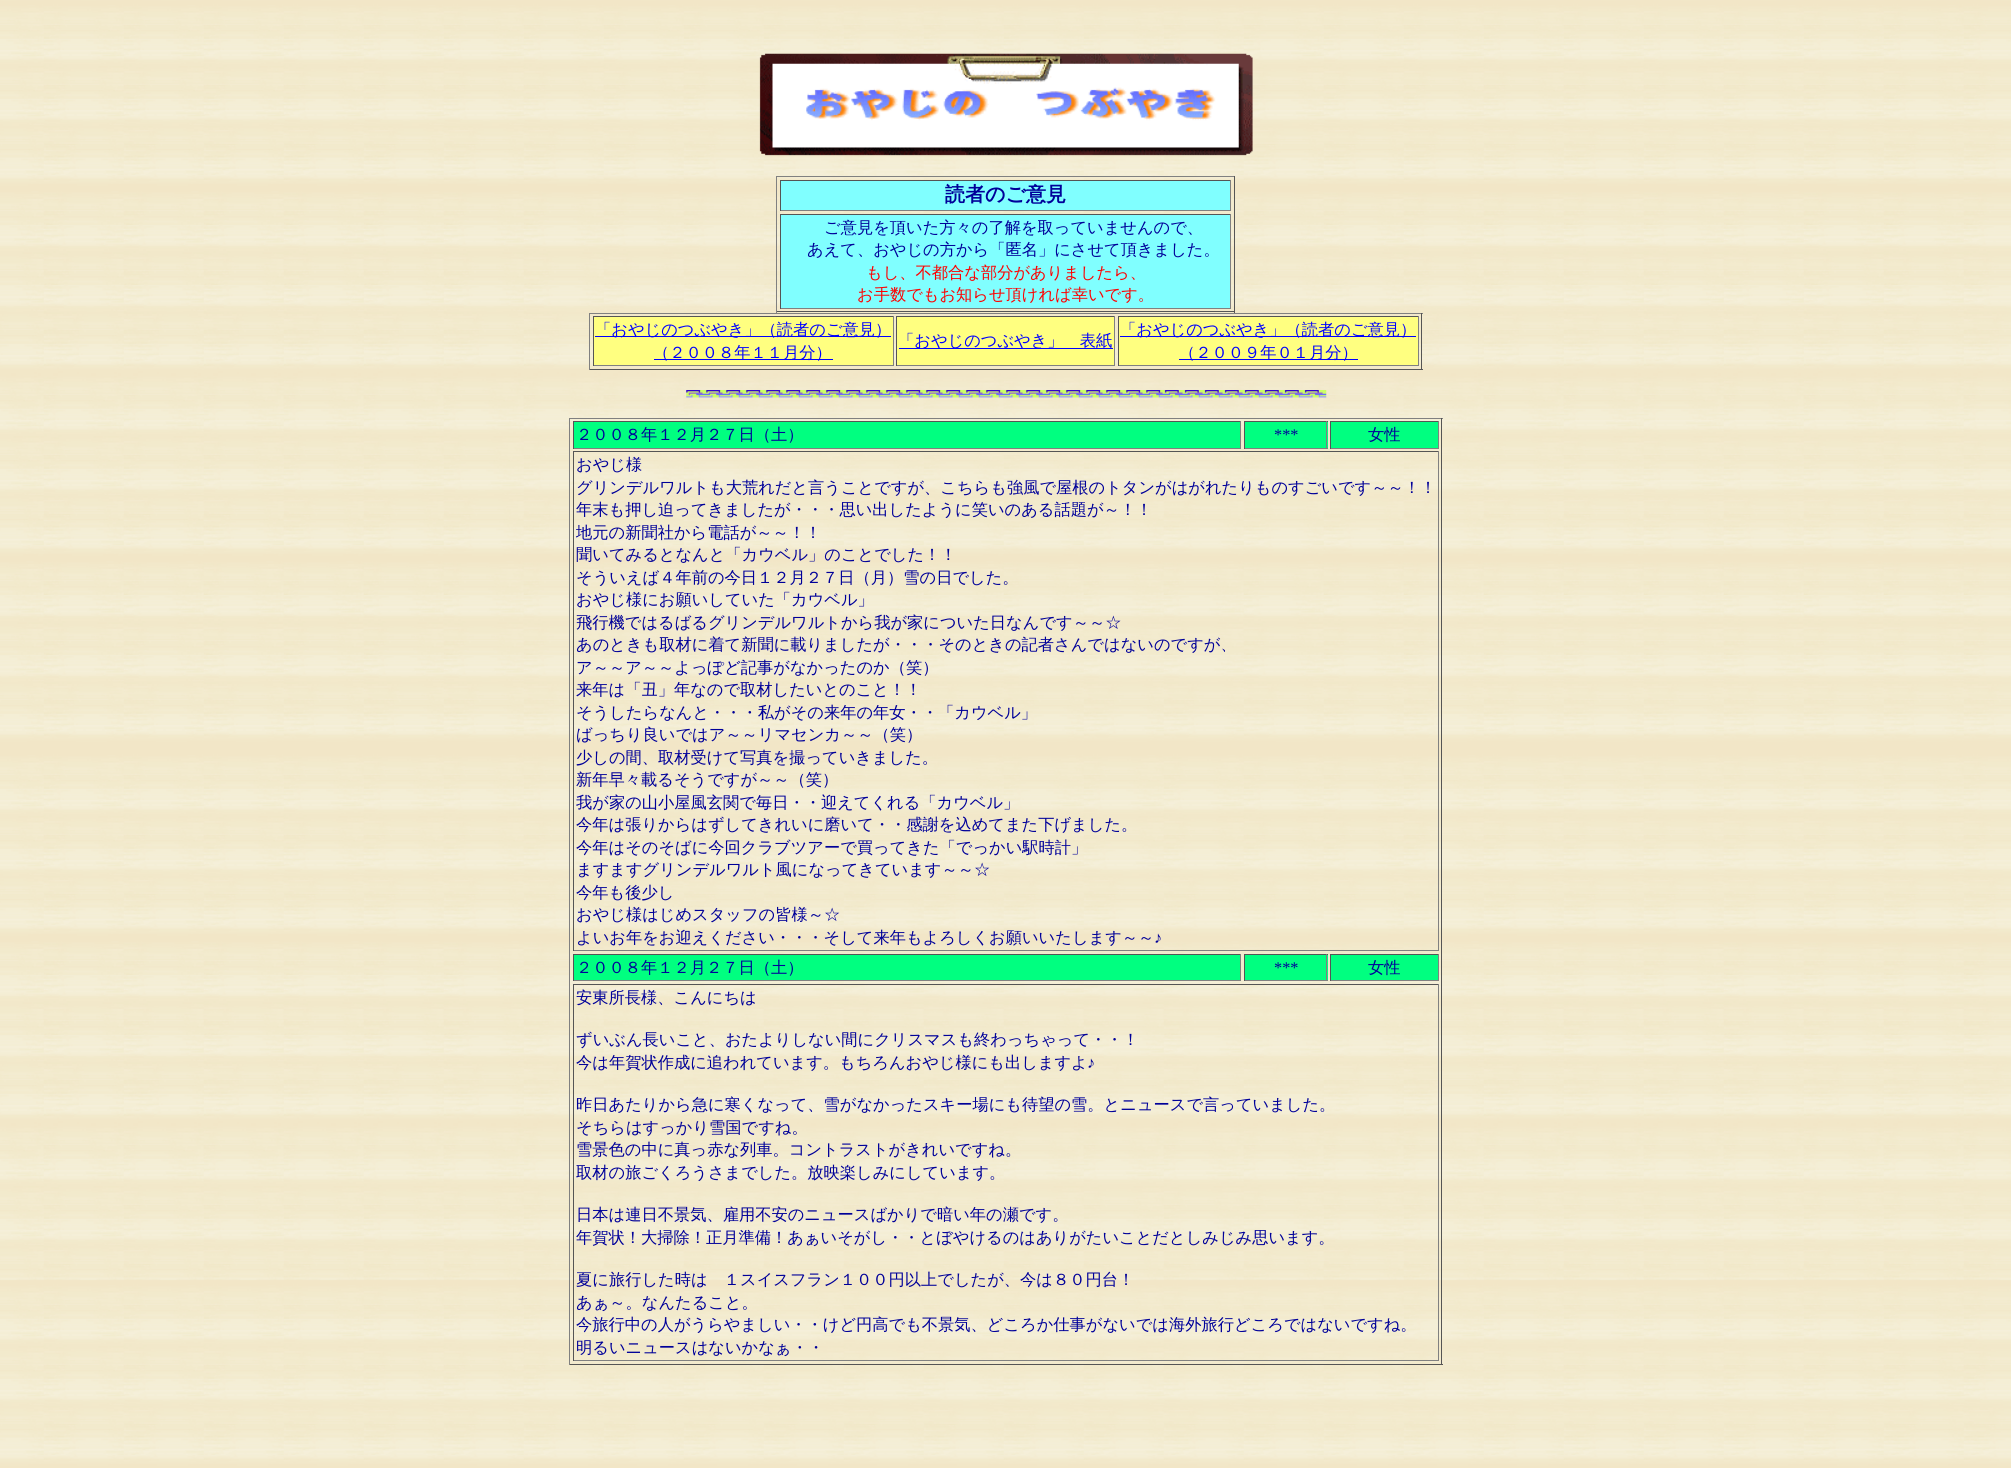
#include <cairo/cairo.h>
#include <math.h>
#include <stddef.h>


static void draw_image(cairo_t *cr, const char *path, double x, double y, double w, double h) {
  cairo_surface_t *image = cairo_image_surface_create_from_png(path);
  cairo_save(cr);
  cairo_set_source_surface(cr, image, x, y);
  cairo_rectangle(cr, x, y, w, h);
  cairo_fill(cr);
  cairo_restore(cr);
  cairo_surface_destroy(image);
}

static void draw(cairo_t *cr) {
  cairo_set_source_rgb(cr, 1, 1, 1);
  cairo_paint(cr);
  draw_image(cr, "images/1.png", 0, 0, 2011, 1468);
  draw_image(cr, "images/2.png", 759, 53, 494, 103);
  cairo_set_source_rgb(cr, 128 / 255.0, 128 / 255.0, 128 / 255.0);
  cairo_rectangle(cr, 776, 176, 459, 1);
  cairo_fill(cr);
  cairo_set_source_rgb(cr, 85 / 255.0, 85 / 255.0, 85 / 255.0);
  cairo_rectangle(cr, 1234, 176, 1, 137);
  cairo_fill(cr);
  cairo_rectangle(cr, 776, 311, 459, 1);
  cairo_fill(cr);
  cairo_set_source_rgb(cr, 128 / 255.0, 128 / 255.0, 128 / 255.0);
  cairo_rectangle(cr, 776, 176, 1, 137);
  cairo_fill(cr);
  cairo_set_source_rgb(cr, 128 / 255.0, 1, 1);
  cairo_rectangle(cr, 781, 181, 449, 29);
  cairo_fill(cr);
  cairo_set_source_rgb(cr, 85 / 255.0, 85 / 255.0, 85 / 255.0);
  cairo_rectangle(cr, 780, 180, 451, 1);
  cairo_fill(cr);
  cairo_set_source_rgb(cr, 128 / 255.0, 128 / 255.0, 128 / 255.0);
  cairo_rectangle(cr, 1230, 180, 1, 31);
  cairo_fill(cr);
  cairo_rectangle(cr, 780, 210, 451, 1);
  cairo_fill(cr);
  cairo_set_source_rgb(cr, 85 / 255.0, 85 / 255.0, 85 / 255.0);
  cairo_rectangle(cr, 780, 180, 1, 31);
  cairo_fill(cr);
  cairo_set_source_rgb(cr, 128 / 255.0, 1, 1);
  cairo_rectangle(cr, 781, 215, 449, 93);
  cairo_fill(cr);
  cairo_set_source_rgb(cr, 85 / 255.0, 85 / 255.0, 85 / 255.0);
  cairo_rectangle(cr, 780, 214, 451, 1);
  cairo_fill(cr);
  cairo_set_source_rgb(cr, 128 / 255.0, 128 / 255.0, 128 / 255.0);
  cairo_rectangle(cr, 1230, 214, 1, 95);
  cairo_fill(cr);
  cairo_rectangle(cr, 780, 308, 451, 1);
  cairo_fill(cr);
  cairo_set_source_rgb(cr, 85 / 255.0, 85 / 255.0, 85 / 255.0);
  cairo_rectangle(cr, 780, 214, 1, 95);
  cairo_fill(cr);
  cairo_set_source_rgb(cr, 128 / 255.0, 128 / 255.0, 128 / 255.0);
  cairo_rectangle(cr, 589, 313, 834, 1);
  cairo_fill(cr);
  cairo_set_source_rgb(cr, 85 / 255.0, 85 / 255.0, 85 / 255.0);
  cairo_rectangle(cr, 1421, 313, 1, 57);
  cairo_fill(cr);
  cairo_rectangle(cr, 589, 369, 834, 1);
  cairo_fill(cr);
  cairo_set_source_rgb(cr, 128 / 255.0, 128 / 255.0, 128 / 255.0);
  cairo_rectangle(cr, 589, 313, 1, 57);
  cairo_fill(cr);
  cairo_set_source_rgb(cr, 1, 1, 128 / 255.0);
  cairo_rectangle(cr, 594, 317, 299, 48);
  cairo_fill(cr);
  cairo_set_source_rgb(cr, 85 / 255.0, 85 / 255.0, 85 / 255.0);
  cairo_rectangle(cr, 593, 316, 301, 1);
  cairo_fill(cr);
  cairo_set_source_rgb(cr, 128 / 255.0, 128 / 255.0, 128 / 255.0);
  cairo_rectangle(cr, 893, 316, 1, 50);
  cairo_fill(cr);
  cairo_rectangle(cr, 593, 365, 301, 1);
  cairo_fill(cr);
  cairo_set_source_rgb(cr, 85 / 255.0, 85 / 255.0, 85 / 255.0);
  cairo_rectangle(cr, 593, 316, 1, 50);
  cairo_fill(cr);
  cairo_set_source_rgb(cr, 0, 0, 1);
  cairo_rectangle(cr, 595, 336, 296, 1);
  cairo_fill(cr);
  cairo_rectangle(cr, 654, 359, 179, 1);
  cairo_fill(cr);
  cairo_set_source_rgb(cr, 1, 1, 128 / 255.0);
  cairo_rectangle(cr, 897, 317, 217, 48);
  cairo_fill(cr);
  cairo_set_source_rgb(cr, 85 / 255.0, 85 / 255.0, 85 / 255.0);
  cairo_rectangle(cr, 896, 316, 219, 1);
  cairo_fill(cr);
  cairo_set_source_rgb(cr, 128 / 255.0, 128 / 255.0, 128 / 255.0);
  cairo_rectangle(cr, 1114, 316, 1, 50);
  cairo_fill(cr);
  cairo_rectangle(cr, 896, 365, 219, 1);
  cairo_fill(cr);
  cairo_set_source_rgb(cr, 85 / 255.0, 85 / 255.0, 85 / 255.0);
  cairo_rectangle(cr, 896, 316, 1, 50);
  cairo_fill(cr);
  cairo_set_source_rgb(cr, 0, 0, 1);
  cairo_rectangle(cr, 899, 348, 214, 1);
  cairo_fill(cr);
  cairo_set_source_rgb(cr, 1, 1, 128 / 255.0);
  cairo_rectangle(cr, 1119, 317, 299, 48);
  cairo_fill(cr);
  cairo_set_source_rgb(cr, 85 / 255.0, 85 / 255.0, 85 / 255.0);
  cairo_rectangle(cr, 1118, 316, 301, 1);
  cairo_fill(cr);
  cairo_set_source_rgb(cr, 128 / 255.0, 128 / 255.0, 128 / 255.0);
  cairo_rectangle(cr, 1418, 316, 1, 50);
  cairo_fill(cr);
  cairo_rectangle(cr, 1118, 365, 301, 1);
  cairo_fill(cr);
  cairo_set_source_rgb(cr, 85 / 255.0, 85 / 255.0, 85 / 255.0);
  cairo_rectangle(cr, 1118, 316, 1, 50);
  cairo_fill(cr);
  cairo_set_source_rgb(cr, 0, 0, 1);
  cairo_rectangle(cr, 1120, 336, 296, 1);
  cairo_fill(cr);
  cairo_rectangle(cr, 1179, 359, 179, 1);
  cairo_fill(cr);
  draw_image(cr, "images/3.png", 686, 390, 641, 8);
  cairo_set_source_rgb(cr, 128 / 255.0, 128 / 255.0, 128 / 255.0);
  cairo_rectangle(cr, 569, 418, 874, 1);
  cairo_fill(cr);
  cairo_set_source_rgb(cr, 85 / 255.0, 85 / 255.0, 85 / 255.0);
  cairo_rectangle(cr, 1441, 418, 1, 947);
  cairo_fill(cr);
  cairo_rectangle(cr, 569, 1364, 874, 1);
  cairo_fill(cr);
  cairo_set_source_rgb(cr, 128 / 255.0, 128 / 255.0, 128 / 255.0);
  cairo_rectangle(cr, 569, 418, 1, 947);
  cairo_fill(cr);
  cairo_set_source_rgb(cr, 0, 1, 128 / 255.0);
  cairo_rectangle(cr, 574, 422, 666, 26);
  cairo_fill(cr);
  cairo_set_source_rgb(cr, 85 / 255.0, 85 / 255.0, 85 / 255.0);
  cairo_rectangle(cr, 573, 421, 668, 1);
  cairo_fill(cr);
  cairo_set_source_rgb(cr, 128 / 255.0, 128 / 255.0, 128 / 255.0);
  cairo_rectangle(cr, 1240, 421, 1, 28);
  cairo_fill(cr);
  cairo_rectangle(cr, 573, 448, 668, 1);
  cairo_fill(cr);
  cairo_set_source_rgb(cr, 85 / 255.0, 85 / 255.0, 85 / 255.0);
  cairo_rectangle(cr, 573, 421, 1, 28);
  cairo_fill(cr);
  cairo_set_source_rgb(cr, 0, 1, 128 / 255.0);
  cairo_rectangle(cr, 1245, 422, 83, 26);
  cairo_fill(cr);
  cairo_set_source_rgb(cr, 85 / 255.0, 85 / 255.0, 85 / 255.0);
  cairo_rectangle(cr, 1244, 421, 84, 1);
  cairo_fill(cr);
  cairo_set_source_rgb(cr, 128 / 255.0, 128 / 255.0, 128 / 255.0);
  cairo_rectangle(cr, 1326, 421, 1, 28);
  cairo_fill(cr);
  cairo_rectangle(cr, 1244, 448, 84, 1);
  cairo_fill(cr);
  cairo_set_source_rgb(cr, 85 / 255.0, 85 / 255.0, 85 / 255.0);
  cairo_rectangle(cr, 1244, 421, 1, 28);
  cairo_fill(cr);
  cairo_set_source_rgb(cr, 0, 1, 128 / 255.0);
  cairo_rectangle(cr, 1331, 422, 107, 26);
  cairo_fill(cr);
  cairo_set_source_rgb(cr, 85 / 255.0, 85 / 255.0, 85 / 255.0);
  cairo_rectangle(cr, 1330, 421, 109, 1);
  cairo_fill(cr);
  cairo_set_source_rgb(cr, 128 / 255.0, 128 / 255.0, 128 / 255.0);
  cairo_rectangle(cr, 1438, 421, 1, 28);
  cairo_fill(cr);
  cairo_rectangle(cr, 1330, 448, 109, 1);
  cairo_fill(cr);
  cairo_set_source_rgb(cr, 85 / 255.0, 85 / 255.0, 85 / 255.0);
  cairo_rectangle(cr, 1330, 421, 1, 28);
  cairo_fill(cr);
  cairo_rectangle(cr, 573, 451, 866, 1);
  cairo_fill(cr);
  cairo_set_source_rgb(cr, 128 / 255.0, 128 / 255.0, 128 / 255.0);
  cairo_rectangle(cr, 1438, 451, 1, 500);
  cairo_fill(cr);
  cairo_rectangle(cr, 573, 950, 866, 1);
  cairo_fill(cr);
  cairo_set_source_rgb(cr, 85 / 255.0, 85 / 255.0, 85 / 255.0);
  cairo_rectangle(cr, 573, 451, 1, 500);
  cairo_fill(cr);
  cairo_set_source_rgb(cr, 0, 1, 128 / 255.0);
  cairo_rectangle(cr, 574, 955, 666, 25);
  cairo_fill(cr);
  cairo_set_source_rgb(cr, 85 / 255.0, 85 / 255.0, 85 / 255.0);
  cairo_rectangle(cr, 573, 954, 668, 1);
  cairo_fill(cr);
  cairo_set_source_rgb(cr, 128 / 255.0, 128 / 255.0, 128 / 255.0);
  cairo_rectangle(cr, 1240, 954, 1, 27);
  cairo_fill(cr);
  cairo_rectangle(cr, 573, 980, 668, 1);
  cairo_fill(cr);
  cairo_set_source_rgb(cr, 85 / 255.0, 85 / 255.0, 85 / 255.0);
  cairo_rectangle(cr, 573, 954, 1, 27);
  cairo_fill(cr);
  cairo_set_source_rgb(cr, 0, 1, 128 / 255.0);
  cairo_rectangle(cr, 1245, 955, 83, 25);
  cairo_fill(cr);
  cairo_set_source_rgb(cr, 85 / 255.0, 85 / 255.0, 85 / 255.0);
  cairo_rectangle(cr, 1244, 954, 84, 1);
  cairo_fill(cr);
  cairo_set_source_rgb(cr, 128 / 255.0, 128 / 255.0, 128 / 255.0);
  cairo_rectangle(cr, 1326, 954, 1, 27);
  cairo_fill(cr);
  cairo_rectangle(cr, 1244, 980, 84, 1);
  cairo_fill(cr);
  cairo_set_source_rgb(cr, 85 / 255.0, 85 / 255.0, 85 / 255.0);
  cairo_rectangle(cr, 1244, 954, 1, 27);
  cairo_fill(cr);
  cairo_set_source_rgb(cr, 0, 1, 128 / 255.0);
  cairo_rectangle(cr, 1331, 955, 107, 25);
  cairo_fill(cr);
  cairo_set_source_rgb(cr, 85 / 255.0, 85 / 255.0, 85 / 255.0);
  cairo_rectangle(cr, 1330, 954, 109, 1);
  cairo_fill(cr);
  cairo_set_source_rgb(cr, 128 / 255.0, 128 / 255.0, 128 / 255.0);
  cairo_rectangle(cr, 1438, 954, 1, 27);
  cairo_fill(cr);
  cairo_rectangle(cr, 1330, 980, 109, 1);
  cairo_fill(cr);
  cairo_set_source_rgb(cr, 85 / 255.0, 85 / 255.0, 85 / 255.0);
  cairo_rectangle(cr, 1330, 954, 1, 27);
  cairo_fill(cr);
  cairo_rectangle(cr, 573, 984, 866, 1);
  cairo_fill(cr);
  cairo_set_source_rgb(cr, 128 / 255.0, 128 / 255.0, 128 / 255.0);
  cairo_rectangle(cr, 1438, 984, 1, 377);
  cairo_fill(cr);
  cairo_rectangle(cr, 573, 1360, 866, 1);
  cairo_fill(cr);
  cairo_set_source_rgb(cr, 85 / 255.0, 85 / 255.0, 85 / 255.0);
  cairo_rectangle(cr, 573, 984, 1, 377);
  cairo_fill(cr);
  cairo_select_font_face(cr, "WenQuanYi Zen Hei", CAIRO_FONT_SLANT_NORMAL, CAIRO_FONT_WEIGHT_BOLD);
  cairo_set_font_size(cr, 20);
  cairo_set_source_rgb(cr, 0, 0, 153 / 255.0);
  cairo_move_to(cr, 945, 201);
  cairo_show_text(cr, "読者のご意見");
  cairo_select_font_face(cr, "WenQuanYi Zen Hei Medium", CAIRO_FONT_SLANT_NORMAL, CAIRO_FONT_WEIGHT_NORMAL);
  cairo_set_font_size(cr, 16.25);
  cairo_move_to(cr, 824, 233);
  cairo_show_text(cr, "ご意見を頂いた方々の了解を取っていませんので、");
  cairo_move_to(cr, 807, 255);
  cairo_show_text(cr, "あえて、おやじの方から「匿名」にさせて頂きました。");
  cairo_set_source_rgb(cr, 1, 0, 0);
  cairo_move_to(cr, 866, 278);
  cairo_show_text(cr, "もし、不都合な部分がありましたら、");
  cairo_move_to(cr, 857, 300);
  cairo_show_text(cr, "お手数でもお知らせ頂ければ幸いです。");
  cairo_set_source_rgb(cr, 0, 0, 1);
  cairo_move_to(cr, 595, 335);
  cairo_show_text(cr, "「おやじのつぶやき」（読者のご意見）");
  cairo_move_to(cr, 653, 358);
  cairo_show_text(cr, "（２００８年１１月分）");
  cairo_move_to(cr, 898, 346);
  cairo_show_text(cr, "「おやじのつぶやき」　表紙");
  cairo_move_to(cr, 1120, 335);
  cairo_show_text(cr, "「おやじのつぶやき」（読者のご意見）");
  cairo_move_to(cr, 1179, 358);
  cairo_show_text(cr, "（２００９年０１月分）");
  cairo_set_source_rgb(cr, 0, 0, 153 / 255.0);
  cairo_move_to(cr, 576, 440);
  cairo_show_text(cr, "２００８年１２月２７日（土）");
  cairo_select_font_face(cr, "Liberation Serif", CAIRO_FONT_SLANT_NORMAL, CAIRO_FONT_WEIGHT_NORMAL);
  cairo_move_to(cr, 1274, 440);
  cairo_show_text(cr, "***");
  cairo_select_font_face(cr, "WenQuanYi Zen Hei Medium", CAIRO_FONT_SLANT_NORMAL, CAIRO_FONT_WEIGHT_NORMAL);
  cairo_move_to(cr, 1368, 440);
  cairo_show_text(cr, "女性");
  cairo_move_to(cr, 576, 470);
  cairo_show_text(cr, "おやじ様");
  cairo_move_to(cr, 576, 493);
  cairo_show_text(cr, "グリンデルワルトも大荒れだと言うことですが、こちらも強風で屋根のトタンがはがれたりものすごいです～～！！");
  cairo_move_to(cr, 576, 515);
  cairo_show_text(cr, "年末も押し迫ってきましたが・・・思い出したように笑いのある話題が～！！");
  cairo_move_to(cr, 576, 538);
  cairo_show_text(cr, "地元の新聞社から電話が～～！！");
  cairo_move_to(cr, 576, 560);
  cairo_show_text(cr, "聞いてみるとなんと「カウベル」のことでした！！");
  cairo_move_to(cr, 576, 583);
  cairo_show_text(cr, "そういえば４年前の今日１２月２７日（月）雪の日でした。");
  cairo_move_to(cr, 576, 605);
  cairo_show_text(cr, "おやじ様にお願いしていた「カウベル」");
  cairo_move_to(cr, 576, 628);
  cairo_show_text(cr, "飛行機ではるばるグリンデルワルトから我が家についた日なんです～～☆");
  cairo_move_to(cr, 576, 650);
  cairo_show_text(cr, "あのときも取材に着て新聞に載りましたが・・・そのときの記者さんではないのですが、");
  cairo_move_to(cr, 576, 673);
  cairo_show_text(cr, "ア～～ア～～よっぽど記事がなかったのか（笑）");
  cairo_move_to(cr, 576, 695);
  cairo_show_text(cr, "来年は「丑」年なので取材したいとのこと！！");
  cairo_move_to(cr, 576, 718);
  cairo_show_text(cr, "そうしたらなんと・・・私がその来年の年女・・「カウベル」");
  cairo_move_to(cr, 576, 740);
  cairo_show_text(cr, "ばっちり良いではア～～リマセンカ～～（笑）");
  cairo_move_to(cr, 576, 763);
  cairo_show_text(cr, "少しの間、取材受けて写真を撮っていきました。");
  cairo_move_to(cr, 576, 785);
  cairo_show_text(cr, "新年早々載るそうですが～～（笑）");
  cairo_move_to(cr, 576, 808);
  cairo_show_text(cr, "我が家の山小屋風玄関で毎日・・迎えてくれる「カウベル」");
  cairo_move_to(cr, 576, 830);
  cairo_show_text(cr, "今年は張りからはずしてきれいに磨いて・・感謝を込めてまた下げました。");
  cairo_move_to(cr, 576, 853);
  cairo_show_text(cr, "今年はそのそばに今回クラブツアーで買ってきた「でっかい駅時計」");
  cairo_move_to(cr, 576, 875);
  cairo_show_text(cr, "ますますグリンデルワルト風になってきています～～☆");
  cairo_move_to(cr, 576, 898);
  cairo_show_text(cr, "今年も後少し");
  cairo_move_to(cr, 576, 920);
  cairo_show_text(cr, "おやじ様はじめスタッフの皆様～☆");
  cairo_move_to(cr, 576, 943);
  cairo_show_text(cr, "よいお年をお迎えください・・・そして来年もよろしくお願いいたします～～");
  cairo_select_font_face(cr, "Liberation Serif", CAIRO_FONT_SLANT_NORMAL, CAIRO_FONT_WEIGHT_NORMAL);
  cairo_move_to(cr, 1154, 943);
  cairo_show_text(cr, "♪");
  cairo_select_font_face(cr, "WenQuanYi Zen Hei Medium", CAIRO_FONT_SLANT_NORMAL, CAIRO_FONT_WEIGHT_NORMAL);
  cairo_move_to(cr, 576, 973);
  cairo_show_text(cr, "２００８年１２月２７日（土）");
  cairo_select_font_face(cr, "Liberation Serif", CAIRO_FONT_SLANT_NORMAL, CAIRO_FONT_WEIGHT_NORMAL);
  cairo_move_to(cr, 1274, 973);
  cairo_show_text(cr, "***");
  cairo_select_font_face(cr, "WenQuanYi Zen Hei Medium", CAIRO_FONT_SLANT_NORMAL, CAIRO_FONT_WEIGHT_NORMAL);
  cairo_move_to(cr, 1368, 973);
  cairo_show_text(cr, "女性");
  cairo_move_to(cr, 576, 1003);
  cairo_show_text(cr, "安東所長様、こんにちは");
  cairo_move_to(cr, 576, 1045);
  cairo_show_text(cr, "ずいぶん長いこと、おたよりしない間にクリスマスも終わっちゃって・・！");
  cairo_move_to(cr, 576, 1068);
  cairo_show_text(cr, "今は年賀状作成に追われています。もちろんおやじ様にも出しますよ");
  cairo_select_font_face(cr, "Liberation Serif", CAIRO_FONT_SLANT_NORMAL, CAIRO_FONT_WEIGHT_NORMAL);
  cairo_move_to(cr, 1087, 1068);
  cairo_show_text(cr, "♪");
  cairo_select_font_face(cr, "WenQuanYi Zen Hei Medium", CAIRO_FONT_SLANT_NORMAL, CAIRO_FONT_WEIGHT_NORMAL);
  cairo_move_to(cr, 576, 1110);
  cairo_show_text(cr, "昨日あたりから急に寒くなって、雪がなかったスキー場にも待望の雪。とニュースで言っていました。");
  cairo_move_to(cr, 576, 1133);
  cairo_show_text(cr, "そちらはすっかり雪国ですね。");
  cairo_move_to(cr, 576, 1155);
  cairo_show_text(cr, "雪景色の中に真っ赤な列車。コントラストがきれいですね。");
  cairo_move_to(cr, 576, 1178);
  cairo_show_text(cr, "取材の旅ごくろうさまでした。放映楽しみにしています。");
  cairo_move_to(cr, 576, 1220);
  cairo_show_text(cr, "日本は連日不景気、雇用不安のニュースばかりで暗い年の瀬です。");
  cairo_move_to(cr, 576, 1243);
  cairo_show_text(cr, "年賀状！大掃除！正月準備！あぁいそがし・・とぼやけるのはありがたいことだとしみじみ思います。");
  cairo_move_to(cr, 576, 1285);
  cairo_show_text(cr, "夏に旅行した時は　１スイスフラン１００円以上でしたが、今は８０円台！");
  cairo_move_to(cr, 576, 1308);
  cairo_show_text(cr, "あぁ～。なんたること。");
  cairo_move_to(cr, 576, 1330);
  cairo_show_text(cr, "今旅行中の人がうらやましい・・けど円高でも不景気、どころか仕事がないでは海外旅行どころではないですね。");
  cairo_move_to(cr, 576, 1353);
  cairo_show_text(cr, "明るいニュースはないかなぁ・・");
}

int main(void) {
  cairo_surface_t *surface = cairo_image_surface_create(CAIRO_FORMAT_RGB24, 2011, 1468);
  cairo_t *cr = cairo_create(surface);
  cairo_font_options_t *options = cairo_font_options_create();
  cairo_font_options_set_hint_metrics(options, CAIRO_HINT_METRICS_OFF);
  cairo_font_options_set_hint_style(options, CAIRO_HINT_STYLE_NONE);
  cairo_set_font_options(cr, options);
  cairo_set_miter_limit(cr, 4);
  draw(cr);
  cairo_surface_write_to_png(surface, "out.png");
  cairo_font_options_destroy(options);
  cairo_destroy(cr);
  cairo_surface_destroy(surface);
  return 0;
}
